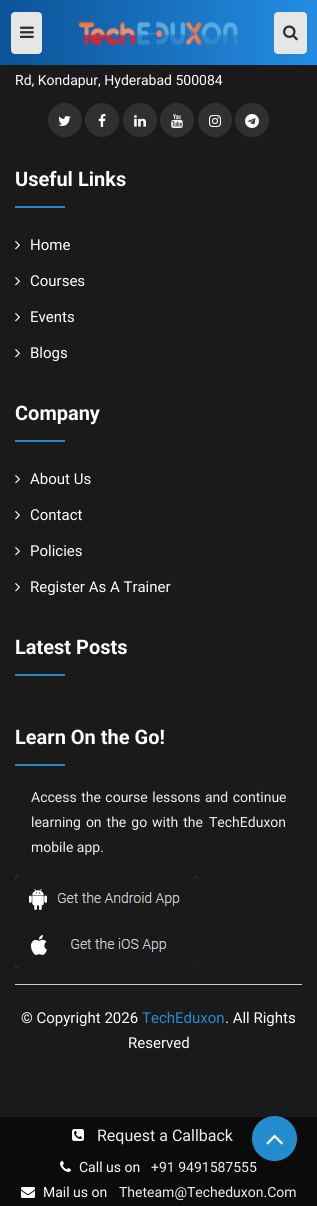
#include <cairo/cairo.h>
#include <math.h>
#include <stddef.h>


static void draw_spaced(cairo_t *cr, double x, double y, const char *s, double letter, double word) {
  cairo_move_to(cr, x, y);
  while (*s) {
    char ch[5] = {0};
    int n = 0;
    do ch[n++] = *s++; while ((*s & 0xC0) == 0x80);
    cairo_show_text(cr, ch);
    cairo_rel_move_to(cr, letter + word * (*ch == ' '), 0);
  }
}

static void rounded_rect(cairo_t *cr, double x, double y, double w, double h, double r) {
  cairo_new_sub_path(cr);
  cairo_arc(cr, x + w - r, y + h - r, r, 0, M_PI / 2);
  cairo_arc(cr, x + r, y + h - r, r, M_PI / 2, M_PI);
  cairo_arc(cr, x + r, y + r, r, M_PI, 1.5 * M_PI);
  cairo_arc(cr, x + w - r, y + r, r, 1.5 * M_PI, 2 * M_PI);
  cairo_close_path(cr);
}

static void draw_image(cairo_t *cr, const char *path, double x, double y, double w, double h) {
  cairo_surface_t *image = cairo_image_surface_create_from_png(path);
  cairo_save(cr);
  cairo_set_source_surface(cr, image, x, y);
  cairo_rectangle(cr, x, y, w, h);
  cairo_fill(cr);
  cairo_restore(cr);
  cairo_surface_destroy(image);
}

static void draw(cairo_t *cr) {
  cairo_pattern_t *gradient;
  cairo_set_source_rgb(cr, 26 / 255.0, 26 / 255.0, 26 / 255.0);
  cairo_paint(cr);
  gradient = cairo_pattern_create_linear(317, 33, 0, 32);
  cairo_pattern_add_color_stop_rgba(gradient, 0, 36 / 255.0, 141 / 255.0, 228 / 255.0, 1);
  cairo_pattern_add_color_stop_rgba(gradient, 1, 12 / 255.0, 83 / 255.0, 151 / 255.0, 1);
  cairo_set_source(cr, gradient);
  cairo_pattern_destroy(gradient);
  cairo_rectangle(cr, 0, 0, 317, 65);
  cairo_fill(cr);
  cairo_set_source_rgb(cr, 230 / 255.0, 230 / 255.0, 230 / 255.0);
  rounded_rect(cr, 11, 12, 31, 42, 4);
  cairo_fill(cr);
  draw_image(cr, "images/1.png", 20, 26, 14, 12);
  draw_image(cr, "images/2.png", 78, 21, 160, 24);
  rounded_rect(cr, 274, 12, 33, 42, 4);
  cairo_fill(cr);
  draw_image(cr, "images/3.png", 283, 25, 15, 16);
  cairo_set_source_rgb(cr, 48 / 255.0, 48 / 255.0, 48 / 255.0);
  cairo_arc(cr, 65, 120, 17, 0, 2 * M_PI);
  cairo_fill(cr);
  draw_image(cr, "images/4.png", 58, 116, 13, 10);
  cairo_arc(cr, 102, 120, 17, 0, 2 * M_PI);
  cairo_fill(cr);
  draw_image(cr, "images/5.png", 98, 114, 8, 13);
  cairo_arc(cr, 140, 120, 17, 0, 2 * M_PI);
  cairo_fill(cr);
  draw_image(cr, "images/6.png", 134, 115, 12, 12);
  cairo_arc(cr, 177, 120, 17, 0, 2 * M_PI);
  cairo_fill(cr);
  draw_image(cr, "images/7.png", 171, 114, 12, 14);
  cairo_arc(cr, 215, 120, 17, 0, 2 * M_PI);
  cairo_fill(cr);
  draw_image(cr, "images/8.png", 209, 115, 12, 12);
  cairo_arc(cr, 252, 120, 17, 0, 2 * M_PI);
  cairo_fill(cr);
  draw_image(cr, "images/9.png", 245, 114, 14, 14);
  cairo_set_source_rgb(cr, 35 / 255.0, 140 / 255.0, 205 / 255.0);
  cairo_rectangle(cr, 15, 206, 50, 2);
  cairo_fill(cr);
  draw_image(cr, "images/10.png", 15, 241, 5, 9);
  draw_image(cr, "images/10.png", 15, 277, 5, 9);
  draw_image(cr, "images/10.png", 15, 313, 5, 9);
  draw_image(cr, "images/10.png", 15, 349, 5, 9);
  cairo_rectangle(cr, 15, 440, 50, 2);
  cairo_fill(cr);
  draw_image(cr, "images/10.png", 15, 475, 5, 9);
  draw_image(cr, "images/10.png", 15, 511, 5, 9);
  draw_image(cr, "images/10.png", 15, 547, 5, 9);
  draw_image(cr, "images/10.png", 15, 583, 5, 9);
  cairo_rectangle(cr, 15, 674, 50, 2);
  cairo_fill(cr);
  cairo_rectangle(cr, 15, 764, 50, 2);
  cairo_fill(cr);
  draw_image(cr, "images/11.png", 15, 876, 183, 34);
  draw_image(cr, "images/12.png", 15, 935, 181, 33);
  cairo_set_source_rgb(cr, 204 / 255.0, 204 / 255.0, 204 / 255.0);
  cairo_rectangle(cr, 15, 984, 287, 1);
  cairo_fill(cr);
  cairo_set_source_rgb(cr, 11 / 255.0, 11 / 255.0, 11 / 255.0);
  cairo_rectangle(cr, 0, 1117, 317, 89);
  cairo_fill(cr);
  draw_image(cr, "images/13.png", 72, 1129, 12, 12);
  draw_image(cr, "images/14.png", 60, 1161, 11, 11);
  draw_image(cr, "images/15.png", 21, 1187, 14, 11);
  cairo_set_source_rgb(cr, 35 / 255.0, 140 / 255.0, 205 / 255.0);
  cairo_arc(cr, 274.5, 1138.5, 22.5, 0, 2 * M_PI);
  cairo_fill(cr);
  draw_image(cr, "images/16.png", 266, 1134, 17, 11);
  cairo_select_font_face(cr, "Roboto", CAIRO_FONT_SLANT_NORMAL, CAIRO_FONT_WEIGHT_NORMAL);
  cairo_set_font_size(cr, 14);
  cairo_set_source_rgb(cr, 1, 1, 1);
  cairo_move_to(cr, 15, 85);
  cairo_show_text(cr, "Rd, Kondapur, Hyderabad 500084");
  cairo_select_font_face(cr, "Roboto", CAIRO_FONT_SLANT_NORMAL, CAIRO_FONT_WEIGHT_BOLD);
  cairo_set_font_size(cr, 20);
  cairo_move_to(cr, 15, 186);
  cairo_show_text(cr, "Useful Links");
  cairo_select_font_face(cr, "Roboto", CAIRO_FONT_SLANT_NORMAL, CAIRO_FONT_WEIGHT_NORMAL);
  cairo_set_font_size(cr, 15);
  cairo_move_to(cr, 30, 250);
  cairo_show_text(cr, "Home");
  cairo_move_to(cr, 30, 286);
  cairo_show_text(cr, "Courses");
  cairo_move_to(cr, 30, 322);
  cairo_show_text(cr, "Events");
  cairo_move_to(cr, 30, 358);
  cairo_show_text(cr, "Blogs");
  cairo_select_font_face(cr, "Roboto", CAIRO_FONT_SLANT_NORMAL, CAIRO_FONT_WEIGHT_BOLD);
  cairo_set_font_size(cr, 20);
  cairo_move_to(cr, 15, 420);
  cairo_show_text(cr, "Company");
  cairo_select_font_face(cr, "Roboto", CAIRO_FONT_SLANT_NORMAL, CAIRO_FONT_WEIGHT_NORMAL);
  cairo_set_font_size(cr, 15);
  cairo_move_to(cr, 30, 484);
  cairo_show_text(cr, "About Us");
  cairo_move_to(cr, 30, 520);
  cairo_show_text(cr, "Contact");
  cairo_move_to(cr, 30, 556);
  cairo_show_text(cr, "Policies");
  cairo_move_to(cr, 30, 592);
  cairo_show_text(cr, "Register As A Trainer");
  cairo_select_font_face(cr, "Roboto", CAIRO_FONT_SLANT_NORMAL, CAIRO_FONT_WEIGHT_BOLD);
  cairo_set_font_size(cr, 20);
  cairo_move_to(cr, 15, 654);
  cairo_show_text(cr, "Latest Posts");
  cairo_move_to(cr, 15, 744);
  cairo_show_text(cr, "Learn On the Go!");
  cairo_select_font_face(cr, "Roboto", CAIRO_FONT_SLANT_NORMAL, CAIRO_FONT_WEIGHT_NORMAL);
  cairo_set_font_size(cr, 14);
  cairo_set_source_rgb(cr, 238 / 255.0, 238 / 255.0, 238 / 255.0);
  draw_spaced(cr, 31, 802, "Access the course lessons and continue", 0, 1);
  draw_spaced(cr, 31, 827, "learning on the go with the", 0, 1.5);
  cairo_move_to(cr, 209, 827);
  cairo_show_text(cr, "TechEduxon");
  cairo_move_to(cr, 31, 852);
  cairo_show_text(cr, "mobile app.");
  cairo_set_font_size(cr, 15);
  cairo_set_source_rgb(cr, 1, 1, 1);
  cairo_move_to(cr, 21, 1023);
  cairo_show_text(cr, "© Copyright 2026");
  cairo_set_source_rgb(cr, 35 / 255.0, 140 / 255.0, 205 / 255.0);
  cairo_move_to(cr, 142, 1023);
  cairo_show_text(cr, "TechEduxon");
  cairo_set_source_rgb(cr, 1, 1, 1);
  cairo_move_to(cr, 225, 1023);
  cairo_show_text(cr, ". All Rights");
  cairo_move_to(cr, 128, 1048);
  cairo_show_text(cr, "Reserved");
  cairo_set_font_size(cr, 16);
  cairo_set_source_rgb(cr, 238 / 255.0, 238 / 255.0, 238 / 255.0);
  cairo_move_to(cr, 97, 1141);
  cairo_show_text(cr, "Request a Callback");
  cairo_set_font_size(cr, 14);
  cairo_set_source_rgb(cr, 1, 1, 1);
  cairo_move_to(cr, 79, 1172);
  cairo_show_text(cr, "Call us on");
  cairo_set_source_rgb(cr, 238 / 255.0, 238 / 255.0, 238 / 255.0);
  cairo_move_to(cr, 151, 1172);
  cairo_show_text(cr, "+91 9491587555");
  cairo_set_source_rgb(cr, 1, 1, 1);
  cairo_move_to(cr, 43, 1197);
  cairo_show_text(cr, "Mail us on");
  cairo_set_source_rgb(cr, 238 / 255.0, 238 / 255.0, 238 / 255.0);
  cairo_move_to(cr, 119, 1197);
  cairo_show_text(cr, "Theteam@Techeduxon.Com");
}

int main(void) {
  cairo_surface_t *surface = cairo_image_surface_create(CAIRO_FORMAT_RGB24, 317, 1206);
  cairo_t *cr = cairo_create(surface);
  cairo_font_options_t *options = cairo_font_options_create();
  cairo_font_options_set_hint_metrics(options, CAIRO_HINT_METRICS_OFF);
  cairo_font_options_set_hint_style(options, CAIRO_HINT_STYLE_NONE);
  cairo_set_font_options(cr, options);
  cairo_set_miter_limit(cr, 4);
  draw(cr);
  cairo_surface_write_to_png(surface, "out.png");
  cairo_font_options_destroy(options);
  cairo_destroy(cr);
  cairo_surface_destroy(surface);
  return 0;
}
